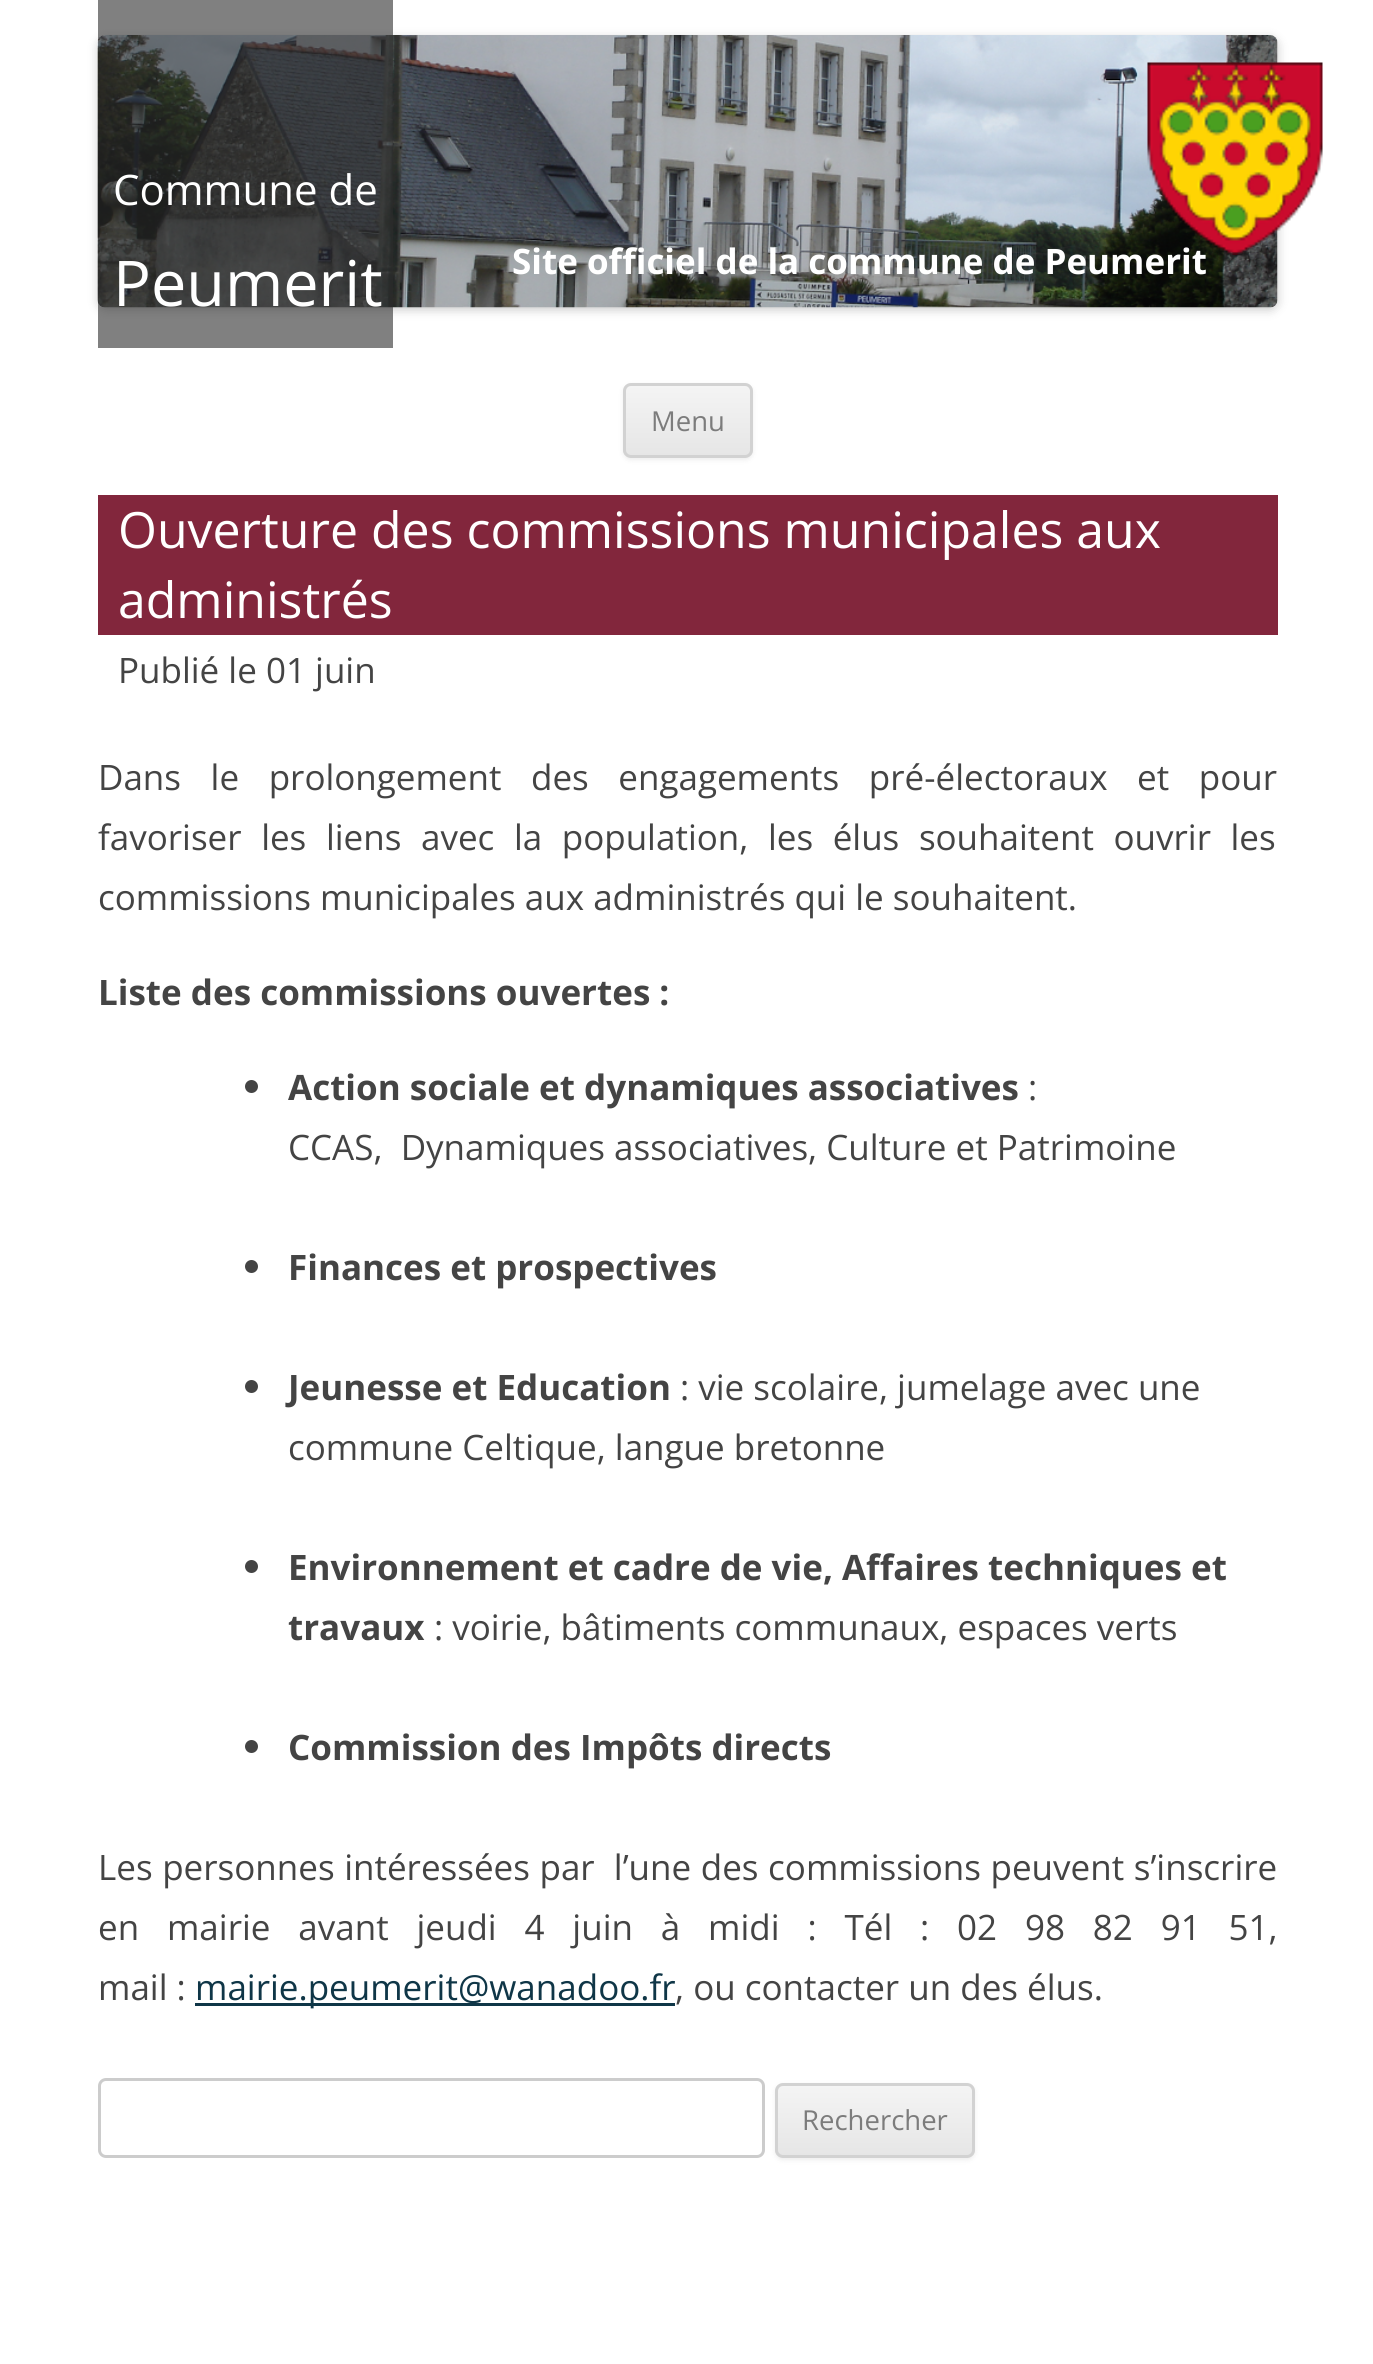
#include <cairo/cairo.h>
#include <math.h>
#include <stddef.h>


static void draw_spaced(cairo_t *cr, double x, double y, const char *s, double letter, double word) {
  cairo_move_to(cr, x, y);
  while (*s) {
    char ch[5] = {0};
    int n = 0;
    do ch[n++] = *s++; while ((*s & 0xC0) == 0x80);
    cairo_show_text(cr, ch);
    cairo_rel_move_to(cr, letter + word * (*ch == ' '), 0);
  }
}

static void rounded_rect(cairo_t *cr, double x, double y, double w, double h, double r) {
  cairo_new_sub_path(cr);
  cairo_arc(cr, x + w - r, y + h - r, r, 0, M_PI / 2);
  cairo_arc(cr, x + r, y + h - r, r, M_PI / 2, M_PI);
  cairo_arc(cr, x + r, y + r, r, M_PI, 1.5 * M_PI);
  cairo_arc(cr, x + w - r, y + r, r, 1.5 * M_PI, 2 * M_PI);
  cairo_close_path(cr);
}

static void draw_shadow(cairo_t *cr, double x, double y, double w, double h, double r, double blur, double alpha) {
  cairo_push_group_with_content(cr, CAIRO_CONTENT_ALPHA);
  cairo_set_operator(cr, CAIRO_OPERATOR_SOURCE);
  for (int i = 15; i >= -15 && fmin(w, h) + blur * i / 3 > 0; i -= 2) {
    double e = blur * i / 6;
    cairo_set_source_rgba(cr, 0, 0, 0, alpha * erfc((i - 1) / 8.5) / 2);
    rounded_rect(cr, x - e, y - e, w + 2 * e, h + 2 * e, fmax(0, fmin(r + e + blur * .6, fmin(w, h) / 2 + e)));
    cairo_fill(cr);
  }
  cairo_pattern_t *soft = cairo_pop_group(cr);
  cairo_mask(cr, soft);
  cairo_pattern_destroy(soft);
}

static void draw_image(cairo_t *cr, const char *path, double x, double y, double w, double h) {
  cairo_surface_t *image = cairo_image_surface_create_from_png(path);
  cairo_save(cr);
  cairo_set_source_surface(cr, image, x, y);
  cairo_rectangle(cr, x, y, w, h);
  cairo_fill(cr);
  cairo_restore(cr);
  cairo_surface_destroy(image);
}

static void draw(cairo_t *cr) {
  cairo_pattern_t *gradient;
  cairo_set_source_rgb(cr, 1, 1, 1);
  cairo_paint(cr);
  cairo_set_source_rgb(cr, 0, 0, 0);
  draw_shadow(cr, 98, 38, 1180, 272, 8, 5, 0.2);
  draw_image(cr, "images/1.png", 97, 35, 1181, 273);
  cairo_set_source_rgba(cr, 44 / 255.0, 44 / 255.0, 44 / 255.0, 0.6);
  cairo_rectangle(cr, 98, 0, 295, 348);
  cairo_fill(cr);
  draw_image(cr, "images/2.png", 1147, 62, 176, 193);
  cairo_set_source_rgb(cr, 64 / 255.0, 64 / 255.0, 64 / 255.0);
  draw_shadow(cr, 623, 385, 130, 75, 8, 2.5, 0.1);
  cairo_save(cr);
  rounded_rect(cr, 623, 383, 130, 75, 8);
  cairo_clip(cr);
  gradient = cairo_pattern_create_linear(688, 385, 688, 455);
  cairo_pattern_add_color_stop_rgba(gradient, 0, 244 / 255.0, 244 / 255.0, 244 / 255.0, 1);
  cairo_pattern_add_color_stop_rgba(gradient, 1, 230 / 255.0, 230 / 255.0, 230 / 255.0, 1);
  cairo_set_source(cr, gradient);
  cairo_pattern_destroy(gradient);
  cairo_rectangle(cr, 623, 385, 130, 70);
  cairo_fill(cr);
  cairo_restore(cr);
  rounded_rect(cr, 624.5, 384.5, 127, 72, 6.5);
  cairo_set_source_rgb(cr, 210 / 255.0, 210 / 255.0, 210 / 255.0);
  cairo_set_line_width(cr, 3);
  cairo_stroke(cr);
  cairo_set_source_rgb(cr, 130 / 255.0, 38 / 255.0, 60 / 255.0);
  cairo_rectangle(cr, 98, 495, 1180, 140);
  cairo_fill(cr);
  cairo_set_source_rgb(cr, 68 / 255.0, 68 / 255.0, 68 / 255.0);
  cairo_arc(cr, 251.5, 1086.5, 6.5, 0, 2 * M_PI);
  cairo_fill(cr);
  cairo_arc(cr, 251.5, 1266.5, 6.5, 0, 2 * M_PI);
  cairo_fill(cr);
  cairo_arc(cr, 251.5, 1386.5, 6.5, 0, 2 * M_PI);
  cairo_fill(cr);
  cairo_arc(cr, 251.5, 1566.5, 6.5, 0, 2 * M_PI);
  cairo_fill(cr);
  cairo_arc(cr, 251.5, 1746.5, 6.5, 0, 2 * M_PI);
  cairo_fill(cr);
  cairo_set_source_rgb(cr, 15 / 255.0, 54 / 255.0, 71 / 255.0);
  cairo_rectangle(cr, 195, 2003, 480, 3);
  cairo_fill(cr);
  rounded_rect(cr, 99.5, 2079.5, 664, 77, 6.5);
  cairo_set_source_rgb(cr, 204 / 255.0, 204 / 255.0, 204 / 255.0);
  cairo_stroke(cr);
  cairo_set_source_rgb(cr, 64 / 255.0, 64 / 255.0, 64 / 255.0);
  draw_shadow(cr, 775, 2085, 200, 75, 8, 2.5, 0.1);
  cairo_save(cr);
  rounded_rect(cr, 775, 2083, 200, 75, 8);
  cairo_clip(cr);
  gradient = cairo_pattern_create_linear(875, 2085, 875, 2155);
  cairo_pattern_add_color_stop_rgba(gradient, 0, 244 / 255.0, 244 / 255.0, 244 / 255.0, 1);
  cairo_pattern_add_color_stop_rgba(gradient, 1, 230 / 255.0, 230 / 255.0, 230 / 255.0, 1);
  cairo_set_source(cr, gradient);
  cairo_pattern_destroy(gradient);
  cairo_rectangle(cr, 775, 2085, 200, 70);
  cairo_fill(cr);
  cairo_restore(cr);
  rounded_rect(cr, 776.5, 2084.5, 197, 72, 6.5);
  cairo_set_source_rgb(cr, 210 / 255.0, 210 / 255.0, 210 / 255.0);
  cairo_stroke(cr);
  cairo_select_font_face(cr, "Open Sans", CAIRO_FONT_SLANT_NORMAL, CAIRO_FONT_WEIGHT_NORMAL);
  cairo_set_font_size(cr, 42);
  cairo_set_source_rgb(cr, 1, 1, 1);
  cairo_move_to(cr, 113, 205);
  cairo_show_text(cr, "Commune de");
  cairo_set_font_size(cr, 63);
  cairo_move_to(cr, 113, 306);
  cairo_show_text(cr, "Peumerit");
  cairo_select_font_face(cr, "Open Sans", CAIRO_FONT_SLANT_NORMAL, CAIRO_FONT_WEIGHT_BOLD);
  cairo_set_font_size(cr, 35);
  cairo_move_to(cr, 512, 274);
  cairo_show_text(cr, "Site officiel de la commune de Peumerit");
  cairo_select_font_face(cr, "Open Sans", CAIRO_FONT_SLANT_NORMAL, CAIRO_FONT_WEIGHT_NORMAL);
  cairo_set_font_size(cr, 27.5);
  cairo_set_source_rgb(cr, 124 / 255.0, 124 / 255.0, 124 / 255.0);
  cairo_move_to(cr, 651, 431);
  cairo_show_text(cr, "Menu");
  cairo_set_font_size(cr, 50);
  cairo_set_source_rgb(cr, 1, 1, 1);
  cairo_move_to(cr, 118, 548);
  cairo_show_text(cr, "Ouverture des commissions municipales aux");
  cairo_move_to(cr, 118, 618);
  cairo_show_text(cr, "administrés");
  cairo_set_font_size(cr, 35);
  cairo_set_source_rgb(cr, 68 / 255.0, 68 / 255.0, 68 / 255.0);
  cairo_move_to(cr, 118, 683);
  cairo_show_text(cr, "Publié le 01 juin");
  draw_spaced(cr, 98, 790, "Dans le prolongement des engagements pré-électoraux et pour", 0, 20.5);
  draw_spaced(cr, 98, 850, "favoriser les liens avec la population, les élus souhaitent ouvrir les", 0, 10.5);
  cairo_move_to(cr, 98, 910);
  cairo_show_text(cr, "commissions municipales aux administrés qui le souhaitent.");
  cairo_select_font_face(cr, "Open Sans", CAIRO_FONT_SLANT_NORMAL, CAIRO_FONT_WEIGHT_BOLD);
  cairo_move_to(cr, 98, 1005);
  cairo_show_text(cr, "Liste des commissions ouvertes :");
  cairo_move_to(cr, 288, 1100);
  cairo_show_text(cr, "Action sociale et dynamiques associatives");
  cairo_select_font_face(cr, "Open Sans", CAIRO_FONT_SLANT_NORMAL, CAIRO_FONT_WEIGHT_NORMAL);
  cairo_move_to(cr, 1028, 1100);
  cairo_show_text(cr, ":");
  cairo_move_to(cr, 288, 1160);
  cairo_show_text(cr, "CCAS,  Dynamiques associatives, Culture et Patrimoine");
  cairo_select_font_face(cr, "Open Sans", CAIRO_FONT_SLANT_NORMAL, CAIRO_FONT_WEIGHT_BOLD);
  cairo_move_to(cr, 288, 1280);
  cairo_show_text(cr, "Finances et prospectives");
  cairo_move_to(cr, 288, 1400);
  cairo_show_text(cr, "Jeunesse et Education");
  cairo_select_font_face(cr, "Open Sans", CAIRO_FONT_SLANT_NORMAL, CAIRO_FONT_WEIGHT_NORMAL);
  cairo_move_to(cr, 680, 1400);
  cairo_show_text(cr, ": vie scolaire, jumelage avec une");
  cairo_move_to(cr, 288, 1460);
  cairo_show_text(cr, "commune Celtique, langue bretonne");
  cairo_select_font_face(cr, "Open Sans", CAIRO_FONT_SLANT_NORMAL, CAIRO_FONT_WEIGHT_BOLD);
  cairo_move_to(cr, 288, 1580);
  cairo_show_text(cr, "Environnement et cadre de vie, Affaires techniques et");
  cairo_move_to(cr, 288, 1640);
  cairo_show_text(cr, "travaux");
  cairo_select_font_face(cr, "Open Sans", CAIRO_FONT_SLANT_NORMAL, CAIRO_FONT_WEIGHT_NORMAL);
  cairo_move_to(cr, 434, 1640);
  cairo_show_text(cr, ": voirie, bâtiments communaux, espaces verts");
  cairo_select_font_face(cr, "Open Sans", CAIRO_FONT_SLANT_NORMAL, CAIRO_FONT_WEIGHT_BOLD);
  cairo_move_to(cr, 288, 1760);
  cairo_show_text(cr, "Commission des Impôts directs");
  cairo_select_font_face(cr, "Open Sans", CAIRO_FONT_SLANT_NORMAL, CAIRO_FONT_WEIGHT_NORMAL);
  draw_spaced(cr, 98, 1880, "Les personnes intéressées par  l’une des commissions peuvent s’inscrire", 0, 0.5);
  draw_spaced(cr, 98, 1940, "en mairie avant jeudi 4 juin à midi : Tél : 02 98 82 91 51,", 0, 18.75);
  cairo_move_to(cr, 98, 2000);
  cairo_show_text(cr, "mail :");
  cairo_set_source_rgb(cr, 15 / 255.0, 54 / 255.0, 71 / 255.0);
  cairo_move_to(cr, 195, 2000);
  cairo_show_text(cr, "mairie.peumerit@wanadoo.fr");
  cairo_set_source_rgb(cr, 68 / 255.0, 68 / 255.0, 68 / 255.0);
  cairo_move_to(cr, 675, 2000);
  cairo_show_text(cr, ", ou contacter un des élus.");
  cairo_set_font_size(cr, 27.5);
  cairo_set_source_rgb(cr, 124 / 255.0, 124 / 255.0, 124 / 255.0);
  cairo_move_to(cr, 802, 2130);
  cairo_show_text(cr, "Rechercher");
}

int main(void) {
  cairo_surface_t *surface = cairo_image_surface_create(CAIRO_FORMAT_RGB24, 1373, 2364);
  cairo_t *cr = cairo_create(surface);
  cairo_font_options_t *options = cairo_font_options_create();
  cairo_font_options_set_hint_metrics(options, CAIRO_HINT_METRICS_OFF);
  cairo_font_options_set_hint_style(options, CAIRO_HINT_STYLE_NONE);
  cairo_set_font_options(cr, options);
  cairo_set_miter_limit(cr, 4);
  draw(cr);
  cairo_surface_write_to_png(surface, "out.png");
  cairo_font_options_destroy(options);
  cairo_destroy(cr);
  cairo_surface_destroy(surface);
  return 0;
}
